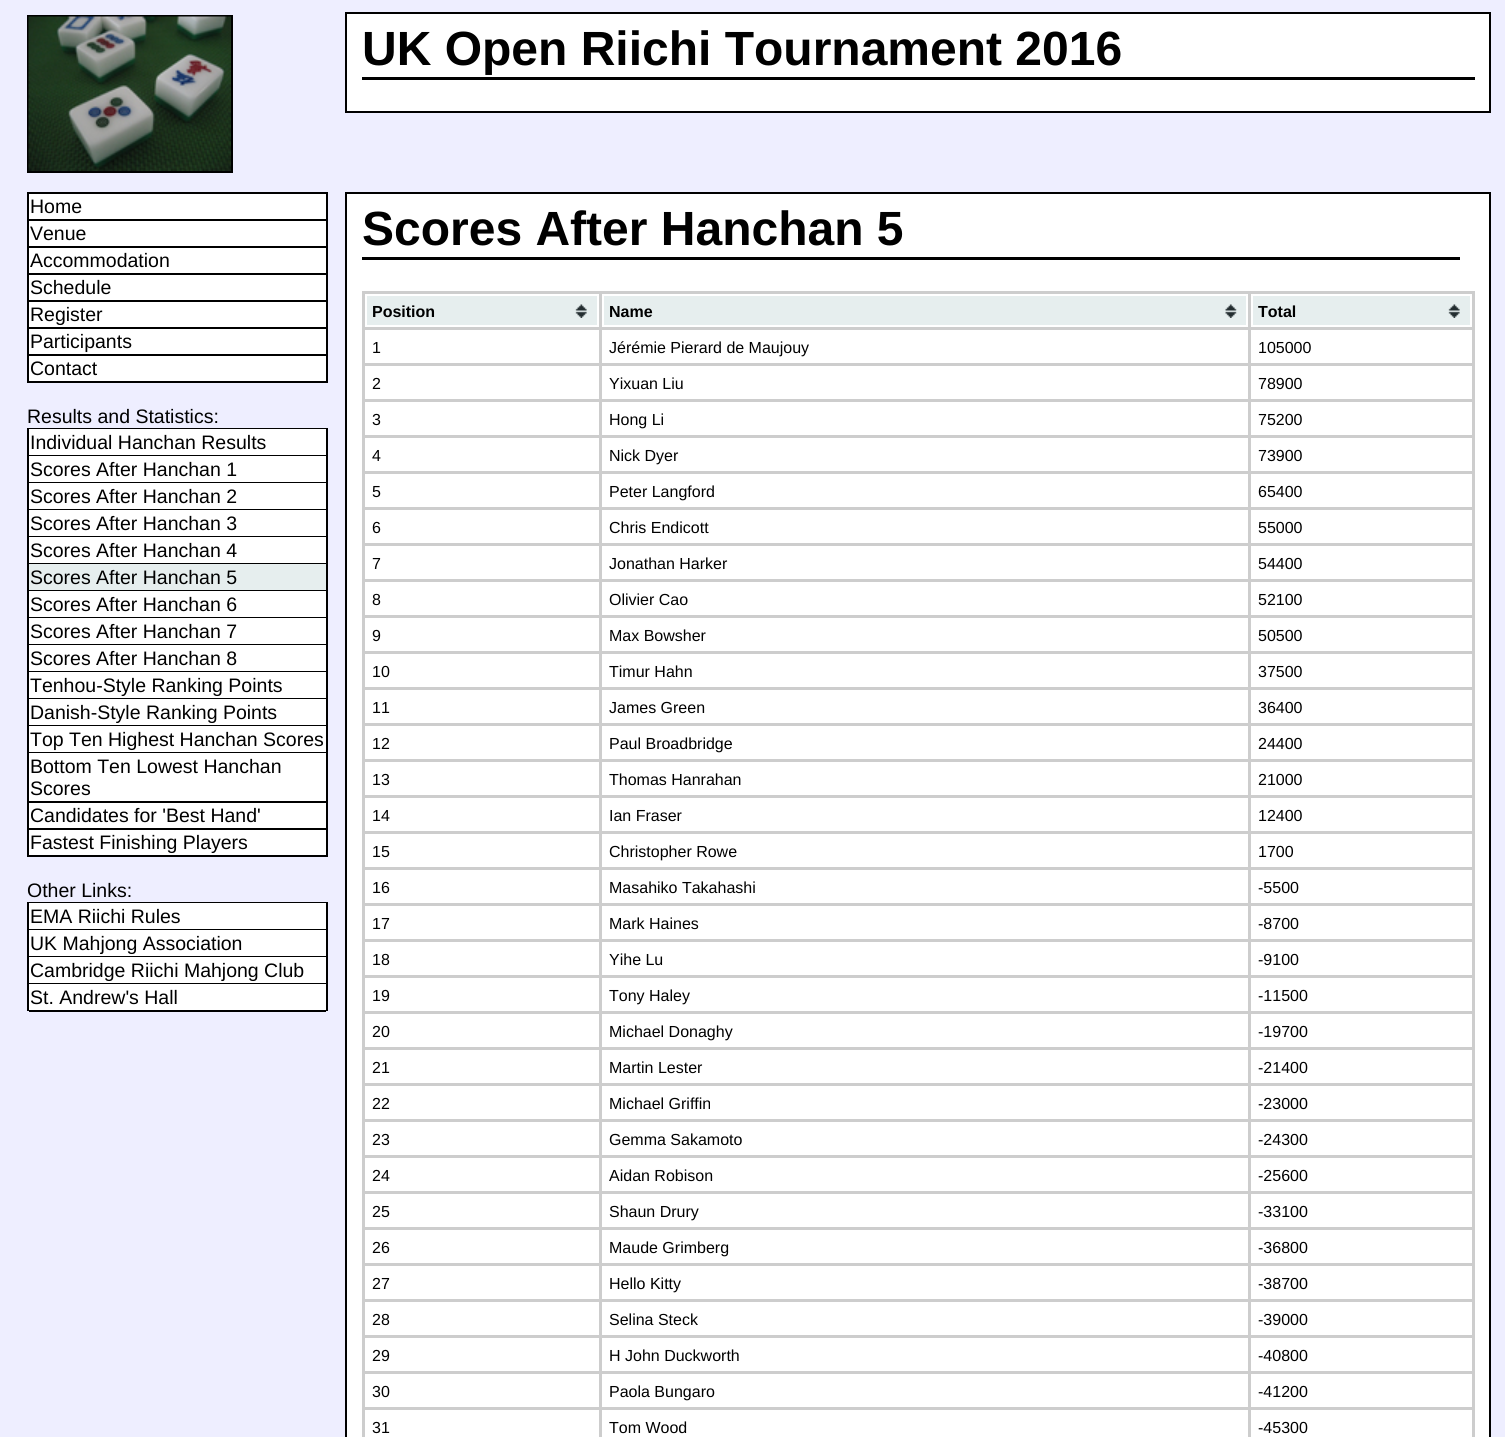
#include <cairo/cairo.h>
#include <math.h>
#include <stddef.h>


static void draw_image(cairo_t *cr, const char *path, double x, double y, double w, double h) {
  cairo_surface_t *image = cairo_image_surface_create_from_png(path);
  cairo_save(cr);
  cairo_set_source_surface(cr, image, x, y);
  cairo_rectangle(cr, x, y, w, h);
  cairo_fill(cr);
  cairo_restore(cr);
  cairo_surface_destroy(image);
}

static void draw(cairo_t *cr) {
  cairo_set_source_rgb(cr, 238 / 255.0, 238 / 255.0, 1);
  cairo_paint(cr);
  cairo_rectangle(cr, 28, 16, 204, 156);
  cairo_set_source_rgb(cr, 0, 0, 0);
  cairo_stroke(cr);
  draw_image(cr, "images/1.png", 28, 16, 203, 155);
  cairo_set_source_rgb(cr, 1, 1, 1);
  cairo_rectangle(cr, 346, 13, 1144, 99);
  cairo_fill_preserve(cr);
  cairo_set_source_rgb(cr, 0, 0, 0);
  cairo_stroke(cr);
  cairo_rectangle(cr, 362, 77, 1113, 3);
  cairo_fill(cr);
  cairo_rectangle(cr, 27, 192, 300, 2);
  cairo_fill(cr);
  cairo_rectangle(cr, 326, 192, 2, 191);
  cairo_fill(cr);
  cairo_rectangle(cr, 27, 192, 2, 191);
  cairo_fill(cr);
  cairo_set_source_rgb(cr, 1, 1, 1);
  cairo_rectangle(cr, 29, 194, 297, 25);
  cairo_fill(cr);
  cairo_set_source_rgb(cr, 0, 0, 0);
  cairo_rectangle(cr, 29, 219, 297, 2);
  cairo_fill(cr);
  cairo_set_source_rgb(cr, 1, 1, 1);
  cairo_rectangle(cr, 29, 221, 297, 25);
  cairo_fill(cr);
  cairo_set_source_rgb(cr, 0, 0, 0);
  cairo_rectangle(cr, 29, 246, 297, 2);
  cairo_fill(cr);
  cairo_set_source_rgb(cr, 1, 1, 1);
  cairo_rectangle(cr, 29, 248, 297, 25);
  cairo_fill(cr);
  cairo_set_source_rgb(cr, 0, 0, 0);
  cairo_rectangle(cr, 29, 273, 297, 2);
  cairo_fill(cr);
  cairo_set_source_rgb(cr, 1, 1, 1);
  cairo_rectangle(cr, 29, 275, 297, 25);
  cairo_fill(cr);
  cairo_set_source_rgb(cr, 0, 0, 0);
  cairo_rectangle(cr, 29, 300, 297, 2);
  cairo_fill(cr);
  cairo_set_source_rgb(cr, 1, 1, 1);
  cairo_rectangle(cr, 29, 302, 297, 25);
  cairo_fill(cr);
  cairo_set_source_rgb(cr, 0, 0, 0);
  cairo_rectangle(cr, 29, 327, 297, 2);
  cairo_fill(cr);
  cairo_set_source_rgb(cr, 1, 1, 1);
  cairo_rectangle(cr, 29, 329, 297, 25);
  cairo_fill(cr);
  cairo_set_source_rgb(cr, 0, 0, 0);
  cairo_rectangle(cr, 29, 354, 297, 2);
  cairo_fill(cr);
  cairo_set_source_rgb(cr, 1, 1, 1);
  cairo_rectangle(cr, 29, 356, 297, 25);
  cairo_fill(cr);
  cairo_set_source_rgb(cr, 0, 0, 0);
  cairo_rectangle(cr, 29, 381, 297, 2);
  cairo_fill(cr);
  cairo_rectangle(cr, 27, 428, 300, 1);
  cairo_fill(cr);
  cairo_rectangle(cr, 326, 428, 2, 429);
  cairo_fill(cr);
  cairo_rectangle(cr, 27, 428, 2, 429);
  cairo_fill(cr);
  cairo_set_source_rgb(cr, 1, 1, 1);
  cairo_rectangle(cr, 29, 429, 297, 26);
  cairo_fill(cr);
  cairo_set_source_rgb(cr, 0, 0, 0);
  cairo_rectangle(cr, 29, 455, 297, 1);
  cairo_fill(cr);
  cairo_set_source_rgb(cr, 1, 1, 1);
  cairo_rectangle(cr, 29, 456, 297, 26);
  cairo_fill(cr);
  cairo_set_source_rgb(cr, 0, 0, 0);
  cairo_rectangle(cr, 29, 482, 297, 1);
  cairo_fill(cr);
  cairo_set_source_rgb(cr, 1, 1, 1);
  cairo_rectangle(cr, 29, 483, 297, 26);
  cairo_fill(cr);
  cairo_set_source_rgb(cr, 0, 0, 0);
  cairo_rectangle(cr, 29, 509, 297, 1);
  cairo_fill(cr);
  cairo_set_source_rgb(cr, 1, 1, 1);
  cairo_rectangle(cr, 29, 510, 297, 26);
  cairo_fill(cr);
  cairo_set_source_rgb(cr, 0, 0, 0);
  cairo_rectangle(cr, 29, 536, 297, 1);
  cairo_fill(cr);
  cairo_set_source_rgb(cr, 1, 1, 1);
  cairo_rectangle(cr, 29, 537, 297, 26);
  cairo_fill(cr);
  cairo_set_source_rgb(cr, 0, 0, 0);
  cairo_rectangle(cr, 29, 563, 297, 1);
  cairo_fill(cr);
  cairo_set_source_rgb(cr, 230 / 255.0, 238 / 255.0, 238 / 255.0);
  cairo_rectangle(cr, 29, 564, 297, 26);
  cairo_fill(cr);
  cairo_set_source_rgb(cr, 0, 0, 0);
  cairo_rectangle(cr, 29, 590, 297, 1);
  cairo_fill(cr);
  cairo_set_source_rgb(cr, 1, 1, 1);
  cairo_rectangle(cr, 29, 591, 297, 26);
  cairo_fill(cr);
  cairo_set_source_rgb(cr, 0, 0, 0);
  cairo_rectangle(cr, 29, 617, 297, 1);
  cairo_fill(cr);
  cairo_set_source_rgb(cr, 1, 1, 1);
  cairo_rectangle(cr, 29, 618, 297, 26);
  cairo_fill(cr);
  cairo_set_source_rgb(cr, 0, 0, 0);
  cairo_rectangle(cr, 29, 644, 297, 1);
  cairo_fill(cr);
  cairo_set_source_rgb(cr, 1, 1, 1);
  cairo_rectangle(cr, 29, 645, 297, 26);
  cairo_fill(cr);
  cairo_set_source_rgb(cr, 0, 0, 0);
  cairo_rectangle(cr, 29, 671, 297, 1);
  cairo_fill(cr);
  cairo_set_source_rgb(cr, 1, 1, 1);
  cairo_rectangle(cr, 29, 672, 297, 26);
  cairo_fill(cr);
  cairo_set_source_rgb(cr, 0, 0, 0);
  cairo_rectangle(cr, 29, 698, 297, 1);
  cairo_fill(cr);
  cairo_set_source_rgb(cr, 1, 1, 1);
  cairo_rectangle(cr, 29, 699, 297, 26);
  cairo_fill(cr);
  cairo_set_source_rgb(cr, 0, 0, 0);
  cairo_rectangle(cr, 29, 725, 297, 1);
  cairo_fill(cr);
  cairo_set_source_rgb(cr, 1, 1, 1);
  cairo_rectangle(cr, 29, 726, 297, 26);
  cairo_fill(cr);
  cairo_set_source_rgb(cr, 0, 0, 0);
  cairo_rectangle(cr, 29, 752, 297, 1);
  cairo_fill(cr);
  cairo_set_source_rgb(cr, 1, 1, 1);
  cairo_rectangle(cr, 29, 753, 297, 48);
  cairo_fill(cr);
  cairo_set_source_rgb(cr, 0, 0, 0);
  cairo_rectangle(cr, 29, 801, 297, 2);
  cairo_fill(cr);
  cairo_set_source_rgb(cr, 1, 1, 1);
  cairo_rectangle(cr, 29, 803, 297, 25);
  cairo_fill(cr);
  cairo_set_source_rgb(cr, 0, 0, 0);
  cairo_rectangle(cr, 29, 828, 297, 2);
  cairo_fill(cr);
  cairo_set_source_rgb(cr, 1, 1, 1);
  cairo_rectangle(cr, 29, 830, 297, 25);
  cairo_fill(cr);
  cairo_set_source_rgb(cr, 0, 0, 0);
  cairo_rectangle(cr, 29, 855, 297, 2);
  cairo_fill(cr);
  cairo_rectangle(cr, 27, 902, 300, 1);
  cairo_fill(cr);
  cairo_rectangle(cr, 326, 902, 2, 109);
  cairo_fill(cr);
  cairo_rectangle(cr, 27, 902, 2, 109);
  cairo_fill(cr);
  cairo_set_source_rgb(cr, 1, 1, 1);
  cairo_rectangle(cr, 29, 903, 297, 26);
  cairo_fill(cr);
  cairo_set_source_rgb(cr, 0, 0, 0);
  cairo_rectangle(cr, 29, 929, 297, 1);
  cairo_fill(cr);
  cairo_set_source_rgb(cr, 1, 1, 1);
  cairo_rectangle(cr, 29, 930, 297, 26);
  cairo_fill(cr);
  cairo_set_source_rgb(cr, 0, 0, 0);
  cairo_rectangle(cr, 29, 956, 297, 1);
  cairo_fill(cr);
  cairo_set_source_rgb(cr, 1, 1, 1);
  cairo_rectangle(cr, 29, 957, 297, 26);
  cairo_fill(cr);
  cairo_set_source_rgb(cr, 0, 0, 0);
  cairo_rectangle(cr, 29, 983, 297, 1);
  cairo_fill(cr);
  cairo_set_source_rgb(cr, 1, 1, 1);
  cairo_rectangle(cr, 29, 984, 297, 26);
  cairo_fill(cr);
  cairo_set_source_rgb(cr, 0, 0, 0);
  cairo_rectangle(cr, 29, 1010, 297, 2);
  cairo_fill(cr);
  cairo_set_source_rgb(cr, 1, 1, 1);
  cairo_rectangle(cr, 346, 193, 1144, 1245);
  cairo_fill_preserve(cr);
  cairo_set_source_rgb(cr, 0, 0, 0);
  cairo_stroke(cr);
  cairo_rectangle(cr, 362, 257, 1098, 3);
  cairo_fill(cr);
  cairo_set_source_rgb(cr, 205 / 255.0, 205 / 255.0, 205 / 255.0);
  cairo_rectangle(cr, 362, 291, 1113, 1146);
  cairo_fill(cr);
  cairo_set_source_rgb(cr, 230 / 255.0, 238 / 255.0, 238 / 255.0);
  cairo_rectangle(cr, 367, 296, 230, 29);
  cairo_fill(cr);
  draw_image(cr, "images/2.png", 575, 304, 12, 14);
  cairo_rectangle(cr, 366, 295, 232, 31);
  cairo_set_source_rgb(cr, 1, 1, 1);
  cairo_stroke(cr);
  cairo_set_source_rgb(cr, 230 / 255.0, 238 / 255.0, 238 / 255.0);
  cairo_rectangle(cr, 604, 296, 642, 29);
  cairo_fill(cr);
  draw_image(cr, "images/3.png", 1225, 304, 12, 14);
  cairo_rectangle(cr, 603, 295, 644, 31);
  cairo_set_source_rgb(cr, 1, 1, 1);
  cairo_stroke(cr);
  cairo_set_source_rgb(cr, 230 / 255.0, 238 / 255.0, 238 / 255.0);
  cairo_rectangle(cr, 1253, 296, 217, 29);
  cairo_fill(cr);
  draw_image(cr, "images/2.png", 1448, 304, 12, 14);
  cairo_rectangle(cr, 1252, 295, 219, 31);
  cairo_set_source_rgb(cr, 1, 1, 1);
  cairo_stroke(cr);
  cairo_rectangle(cr, 365, 330, 234, 33);
  cairo_fill(cr);
  cairo_rectangle(cr, 602, 330, 646, 33);
  cairo_fill(cr);
  cairo_rectangle(cr, 1251, 330, 221, 33);
  cairo_fill(cr);
  cairo_rectangle(cr, 365, 366, 234, 33);
  cairo_fill(cr);
  cairo_rectangle(cr, 602, 366, 646, 33);
  cairo_fill(cr);
  cairo_rectangle(cr, 1251, 366, 221, 33);
  cairo_fill(cr);
  cairo_rectangle(cr, 365, 402, 234, 33);
  cairo_fill(cr);
  cairo_rectangle(cr, 602, 402, 646, 33);
  cairo_fill(cr);
  cairo_rectangle(cr, 1251, 402, 221, 33);
  cairo_fill(cr);
  cairo_rectangle(cr, 365, 438, 234, 33);
  cairo_fill(cr);
  cairo_rectangle(cr, 602, 438, 646, 33);
  cairo_fill(cr);
  cairo_rectangle(cr, 1251, 438, 221, 33);
  cairo_fill(cr);
  cairo_rectangle(cr, 365, 474, 234, 33);
  cairo_fill(cr);
  cairo_rectangle(cr, 602, 474, 646, 33);
  cairo_fill(cr);
  cairo_rectangle(cr, 1251, 474, 221, 33);
  cairo_fill(cr);
  cairo_rectangle(cr, 365, 510, 234, 33);
  cairo_fill(cr);
  cairo_rectangle(cr, 602, 510, 646, 33);
  cairo_fill(cr);
  cairo_rectangle(cr, 1251, 510, 221, 33);
  cairo_fill(cr);
  cairo_rectangle(cr, 365, 546, 234, 33);
  cairo_fill(cr);
  cairo_rectangle(cr, 602, 546, 646, 33);
  cairo_fill(cr);
  cairo_rectangle(cr, 1251, 546, 221, 33);
  cairo_fill(cr);
  cairo_rectangle(cr, 365, 582, 234, 33);
  cairo_fill(cr);
  cairo_rectangle(cr, 602, 582, 646, 33);
  cairo_fill(cr);
  cairo_rectangle(cr, 1251, 582, 221, 33);
  cairo_fill(cr);
  cairo_rectangle(cr, 365, 618, 234, 33);
  cairo_fill(cr);
  cairo_rectangle(cr, 602, 618, 646, 33);
  cairo_fill(cr);
  cairo_rectangle(cr, 1251, 618, 221, 33);
  cairo_fill(cr);
  cairo_rectangle(cr, 365, 654, 234, 33);
  cairo_fill(cr);
  cairo_rectangle(cr, 602, 654, 646, 33);
  cairo_fill(cr);
  cairo_rectangle(cr, 1251, 654, 221, 33);
  cairo_fill(cr);
  cairo_rectangle(cr, 365, 690, 234, 33);
  cairo_fill(cr);
  cairo_rectangle(cr, 602, 690, 646, 33);
  cairo_fill(cr);
  cairo_rectangle(cr, 1251, 690, 221, 33);
  cairo_fill(cr);
  cairo_rectangle(cr, 365, 726, 234, 33);
  cairo_fill(cr);
  cairo_rectangle(cr, 602, 726, 646, 33);
  cairo_fill(cr);
  cairo_rectangle(cr, 1251, 726, 221, 33);
  cairo_fill(cr);
  cairo_rectangle(cr, 365, 762, 234, 33);
  cairo_fill(cr);
  cairo_rectangle(cr, 602, 762, 646, 33);
  cairo_fill(cr);
  cairo_rectangle(cr, 1251, 762, 221, 33);
  cairo_fill(cr);
  cairo_rectangle(cr, 365, 798, 234, 33);
  cairo_fill(cr);
  cairo_rectangle(cr, 602, 798, 646, 33);
  cairo_fill(cr);
  cairo_rectangle(cr, 1251, 798, 221, 33);
  cairo_fill(cr);
  cairo_rectangle(cr, 365, 834, 234, 33);
  cairo_fill(cr);
  cairo_rectangle(cr, 602, 834, 646, 33);
  cairo_fill(cr);
  cairo_rectangle(cr, 1251, 834, 221, 33);
  cairo_fill(cr);
  cairo_rectangle(cr, 365, 870, 234, 33);
  cairo_fill(cr);
  cairo_rectangle(cr, 602, 870, 646, 33);
  cairo_fill(cr);
  cairo_rectangle(cr, 1251, 870, 221, 33);
  cairo_fill(cr);
  cairo_rectangle(cr, 365, 906, 234, 33);
  cairo_fill(cr);
  cairo_rectangle(cr, 602, 906, 646, 33);
  cairo_fill(cr);
  cairo_rectangle(cr, 1251, 906, 221, 33);
  cairo_fill(cr);
  cairo_rectangle(cr, 365, 942, 234, 33);
  cairo_fill(cr);
  cairo_rectangle(cr, 602, 942, 646, 33);
  cairo_fill(cr);
  cairo_rectangle(cr, 1251, 942, 221, 33);
  cairo_fill(cr);
  cairo_rectangle(cr, 365, 978, 234, 33);
  cairo_fill(cr);
  cairo_rectangle(cr, 602, 978, 646, 33);
  cairo_fill(cr);
  cairo_rectangle(cr, 1251, 978, 221, 33);
  cairo_fill(cr);
  cairo_rectangle(cr, 365, 1014, 234, 33);
  cairo_fill(cr);
  cairo_rectangle(cr, 602, 1014, 646, 33);
  cairo_fill(cr);
  cairo_rectangle(cr, 1251, 1014, 221, 33);
  cairo_fill(cr);
  cairo_rectangle(cr, 365, 1050, 234, 33);
  cairo_fill(cr);
  cairo_rectangle(cr, 602, 1050, 646, 33);
  cairo_fill(cr);
  cairo_rectangle(cr, 1251, 1050, 221, 33);
  cairo_fill(cr);
  cairo_rectangle(cr, 365, 1086, 234, 33);
  cairo_fill(cr);
  cairo_rectangle(cr, 602, 1086, 646, 33);
  cairo_fill(cr);
  cairo_rectangle(cr, 1251, 1086, 221, 33);
  cairo_fill(cr);
  cairo_rectangle(cr, 365, 1122, 234, 33);
  cairo_fill(cr);
  cairo_rectangle(cr, 602, 1122, 646, 33);
  cairo_fill(cr);
  cairo_rectangle(cr, 1251, 1122, 221, 33);
  cairo_fill(cr);
  cairo_rectangle(cr, 365, 1158, 234, 33);
  cairo_fill(cr);
  cairo_rectangle(cr, 602, 1158, 646, 33);
  cairo_fill(cr);
  cairo_rectangle(cr, 1251, 1158, 221, 33);
  cairo_fill(cr);
  cairo_rectangle(cr, 365, 1194, 234, 33);
  cairo_fill(cr);
  cairo_rectangle(cr, 602, 1194, 646, 33);
  cairo_fill(cr);
  cairo_rectangle(cr, 1251, 1194, 221, 33);
  cairo_fill(cr);
  cairo_rectangle(cr, 365, 1230, 234, 33);
  cairo_fill(cr);
  cairo_rectangle(cr, 602, 1230, 646, 33);
  cairo_fill(cr);
  cairo_rectangle(cr, 1251, 1230, 221, 33);
  cairo_fill(cr);
  cairo_rectangle(cr, 365, 1266, 234, 33);
  cairo_fill(cr);
  cairo_rectangle(cr, 602, 1266, 646, 33);
  cairo_fill(cr);
  cairo_rectangle(cr, 1251, 1266, 221, 33);
  cairo_fill(cr);
  cairo_rectangle(cr, 365, 1302, 234, 33);
  cairo_fill(cr);
  cairo_rectangle(cr, 602, 1302, 646, 33);
  cairo_fill(cr);
  cairo_rectangle(cr, 1251, 1302, 221, 33);
  cairo_fill(cr);
  cairo_rectangle(cr, 365, 1338, 234, 33);
  cairo_fill(cr);
  cairo_rectangle(cr, 602, 1338, 646, 33);
  cairo_fill(cr);
  cairo_rectangle(cr, 1251, 1338, 221, 33);
  cairo_fill(cr);
  cairo_rectangle(cr, 365, 1374, 234, 33);
  cairo_fill(cr);
  cairo_rectangle(cr, 602, 1374, 646, 33);
  cairo_fill(cr);
  cairo_rectangle(cr, 1251, 1374, 221, 33);
  cairo_fill(cr);
  cairo_rectangle(cr, 365, 1410, 234, 27);
  cairo_fill(cr);
  cairo_rectangle(cr, 602, 1410, 646, 27);
  cairo_fill(cr);
  cairo_rectangle(cr, 1251, 1410, 221, 27);
  cairo_fill(cr);
  cairo_select_font_face(cr, "Liberation Sans", CAIRO_FONT_SLANT_NORMAL, CAIRO_FONT_WEIGHT_BOLD);
  cairo_set_font_size(cr, 48);
  cairo_set_source_rgb(cr, 0, 0, 0);
  cairo_move_to(cr, 362, 65);
  cairo_show_text(cr, "UK Open Riichi Tournament 2016");
  cairo_select_font_face(cr, "Liberation Sans", CAIRO_FONT_SLANT_NORMAL, CAIRO_FONT_WEIGHT_NORMAL);
  cairo_set_font_size(cr, 19.5);
  cairo_move_to(cr, 30, 213);
  cairo_show_text(cr, "Home");
  cairo_move_to(cr, 30, 240);
  cairo_show_text(cr, "Venue");
  cairo_move_to(cr, 30, 267);
  cairo_show_text(cr, "Accommodation");
  cairo_move_to(cr, 30, 294);
  cairo_show_text(cr, "Schedule");
  cairo_move_to(cr, 30, 321);
  cairo_show_text(cr, "Register");
  cairo_move_to(cr, 30, 348);
  cairo_show_text(cr, "Participants");
  cairo_move_to(cr, 30, 375);
  cairo_show_text(cr, "Contact");
  cairo_move_to(cr, 27, 423);
  cairo_show_text(cr, "Results and Statistics:");
  cairo_move_to(cr, 30, 449);
  cairo_show_text(cr, "Individual Hanchan Results");
  cairo_move_to(cr, 30, 476);
  cairo_show_text(cr, "Scores After Hanchan 1");
  cairo_move_to(cr, 30, 503);
  cairo_show_text(cr, "Scores After Hanchan 2");
  cairo_move_to(cr, 30, 530);
  cairo_show_text(cr, "Scores After Hanchan 3");
  cairo_move_to(cr, 30, 557);
  cairo_show_text(cr, "Scores After Hanchan 4");
  cairo_move_to(cr, 30, 584);
  cairo_show_text(cr, "Scores After Hanchan 5");
  cairo_move_to(cr, 30, 611);
  cairo_show_text(cr, "Scores After Hanchan 6");
  cairo_move_to(cr, 30, 638);
  cairo_show_text(cr, "Scores After Hanchan 7");
  cairo_move_to(cr, 30, 665);
  cairo_show_text(cr, "Scores After Hanchan 8");
  cairo_move_to(cr, 30, 692);
  cairo_show_text(cr, "Tenhou-Style Ranking Points");
  cairo_move_to(cr, 30, 719);
  cairo_show_text(cr, "Danish-Style Ranking Points");
  cairo_move_to(cr, 30, 746);
  cairo_show_text(cr, "Top Ten Highest Hanchan Scores");
  cairo_move_to(cr, 30, 773);
  cairo_show_text(cr, "Bottom Ten Lowest Hanchan");
  cairo_move_to(cr, 30, 795);
  cairo_show_text(cr, "Scores");
  cairo_move_to(cr, 30, 822);
  cairo_show_text(cr, "Candidates for 'Best Hand'");
  cairo_move_to(cr, 30, 849);
  cairo_show_text(cr, "Fastest Finishing Players");
  cairo_move_to(cr, 27, 897);
  cairo_show_text(cr, "Other Links:");
  cairo_move_to(cr, 30, 923);
  cairo_show_text(cr, "EMA Riichi Rules");
  cairo_move_to(cr, 30, 950);
  cairo_show_text(cr, "UK Mahjong Association");
  cairo_move_to(cr, 30, 977);
  cairo_show_text(cr, "Cambridge Riichi Mahjong Club");
  cairo_move_to(cr, 30, 1004);
  cairo_show_text(cr, "St. Andrew's Hall");
  cairo_select_font_face(cr, "Liberation Sans", CAIRO_FONT_SLANT_NORMAL, CAIRO_FONT_WEIGHT_BOLD);
  cairo_set_font_size(cr, 48);
  cairo_move_to(cr, 362, 245);
  cairo_show_text(cr, "Scores After Hanchan 5");
  cairo_set_font_size(cr, 16);
  cairo_move_to(cr, 372, 317);
  cairo_show_text(cr, "Position");
  cairo_move_to(cr, 609, 317);
  cairo_show_text(cr, "Name");
  cairo_move_to(cr, 1258, 317);
  cairo_show_text(cr, "Total");
  cairo_select_font_face(cr, "Liberation Sans", CAIRO_FONT_SLANT_NORMAL, CAIRO_FONT_WEIGHT_NORMAL);
  cairo_move_to(cr, 372, 353);
  cairo_show_text(cr, "1");
  cairo_move_to(cr, 609, 353);
  cairo_show_text(cr, "Jérémie Pierard de Maujouy");
  cairo_move_to(cr, 1258, 353);
  cairo_show_text(cr, "105000");
  cairo_move_to(cr, 372, 389);
  cairo_show_text(cr, "2");
  cairo_move_to(cr, 609, 389);
  cairo_show_text(cr, "Yixuan Liu");
  cairo_move_to(cr, 1258, 389);
  cairo_show_text(cr, "78900");
  cairo_move_to(cr, 372, 425);
  cairo_show_text(cr, "3");
  cairo_move_to(cr, 609, 425);
  cairo_show_text(cr, "Hong Li");
  cairo_move_to(cr, 1258, 425);
  cairo_show_text(cr, "75200");
  cairo_move_to(cr, 372, 461);
  cairo_show_text(cr, "4");
  cairo_move_to(cr, 609, 461);
  cairo_show_text(cr, "Nick Dyer");
  cairo_move_to(cr, 1258, 461);
  cairo_show_text(cr, "73900");
  cairo_move_to(cr, 372, 497);
  cairo_show_text(cr, "5");
  cairo_move_to(cr, 609, 497);
  cairo_show_text(cr, "Peter Langford");
  cairo_move_to(cr, 1258, 497);
  cairo_show_text(cr, "65400");
  cairo_move_to(cr, 372, 533);
  cairo_show_text(cr, "6");
  cairo_move_to(cr, 609, 533);
  cairo_show_text(cr, "Chris Endicott");
  cairo_move_to(cr, 1258, 533);
  cairo_show_text(cr, "55000");
  cairo_move_to(cr, 372, 569);
  cairo_show_text(cr, "7");
  cairo_move_to(cr, 609, 569);
  cairo_show_text(cr, "Jonathan Harker");
  cairo_move_to(cr, 1258, 569);
  cairo_show_text(cr, "54400");
  cairo_move_to(cr, 372, 605);
  cairo_show_text(cr, "8");
  cairo_move_to(cr, 609, 605);
  cairo_show_text(cr, "Olivier Cao");
  cairo_move_to(cr, 1258, 605);
  cairo_show_text(cr, "52100");
  cairo_move_to(cr, 372, 641);
  cairo_show_text(cr, "9");
  cairo_move_to(cr, 609, 641);
  cairo_show_text(cr, "Max Bowsher");
  cairo_move_to(cr, 1258, 641);
  cairo_show_text(cr, "50500");
  cairo_move_to(cr, 372, 677);
  cairo_show_text(cr, "10");
  cairo_move_to(cr, 609, 677);
  cairo_show_text(cr, "Timur Hahn");
  cairo_move_to(cr, 1258, 677);
  cairo_show_text(cr, "37500");
  cairo_move_to(cr, 372, 713);
  cairo_show_text(cr, "11");
  cairo_move_to(cr, 609, 713);
  cairo_show_text(cr, "James Green");
  cairo_move_to(cr, 1258, 713);
  cairo_show_text(cr, "36400");
  cairo_move_to(cr, 372, 749);
  cairo_show_text(cr, "12");
  cairo_move_to(cr, 609, 749);
  cairo_show_text(cr, "Paul Broadbridge");
  cairo_move_to(cr, 1258, 749);
  cairo_show_text(cr, "24400");
  cairo_move_to(cr, 372, 785);
  cairo_show_text(cr, "13");
  cairo_move_to(cr, 609, 785);
  cairo_show_text(cr, "Thomas Hanrahan");
  cairo_move_to(cr, 1258, 785);
  cairo_show_text(cr, "21000");
  cairo_move_to(cr, 372, 821);
  cairo_show_text(cr, "14");
  cairo_move_to(cr, 609, 821);
  cairo_show_text(cr, "Ian Fraser");
  cairo_move_to(cr, 1258, 821);
  cairo_show_text(cr, "12400");
  cairo_move_to(cr, 372, 857);
  cairo_show_text(cr, "15");
  cairo_move_to(cr, 609, 857);
  cairo_show_text(cr, "Christopher Rowe");
  cairo_move_to(cr, 1258, 857);
  cairo_show_text(cr, "1700");
  cairo_move_to(cr, 372, 893);
  cairo_show_text(cr, "16");
  cairo_move_to(cr, 609, 893);
  cairo_show_text(cr, "Masahiko Takahashi");
  cairo_move_to(cr, 1258, 893);
  cairo_show_text(cr, "-5500");
  cairo_move_to(cr, 372, 929);
  cairo_show_text(cr, "17");
  cairo_move_to(cr, 609, 929);
  cairo_show_text(cr, "Mark Haines");
  cairo_move_to(cr, 1258, 929);
  cairo_show_text(cr, "-8700");
  cairo_move_to(cr, 372, 965);
  cairo_show_text(cr, "18");
  cairo_move_to(cr, 609, 965);
  cairo_show_text(cr, "Yihe Lu");
  cairo_move_to(cr, 1258, 965);
  cairo_show_text(cr, "-9100");
  cairo_move_to(cr, 372, 1001);
  cairo_show_text(cr, "19");
  cairo_move_to(cr, 609, 1001);
  cairo_show_text(cr, "Tony Haley");
  cairo_move_to(cr, 1258, 1001);
  cairo_show_text(cr, "-11500");
  cairo_move_to(cr, 372, 1037);
  cairo_show_text(cr, "20");
  cairo_move_to(cr, 609, 1037);
  cairo_show_text(cr, "Michael Donaghy");
  cairo_move_to(cr, 1258, 1037);
  cairo_show_text(cr, "-19700");
  cairo_move_to(cr, 372, 1073);
  cairo_show_text(cr, "21");
  cairo_move_to(cr, 609, 1073);
  cairo_show_text(cr, "Martin Lester");
  cairo_move_to(cr, 1258, 1073);
  cairo_show_text(cr, "-21400");
  cairo_move_to(cr, 372, 1109);
  cairo_show_text(cr, "22");
  cairo_move_to(cr, 609, 1109);
  cairo_show_text(cr, "Michael Griffin");
  cairo_move_to(cr, 1258, 1109);
  cairo_show_text(cr, "-23000");
  cairo_move_to(cr, 372, 1145);
  cairo_show_text(cr, "23");
  cairo_move_to(cr, 609, 1145);
  cairo_show_text(cr, "Gemma Sakamoto");
  cairo_move_to(cr, 1258, 1145);
  cairo_show_text(cr, "-24300");
  cairo_move_to(cr, 372, 1181);
  cairo_show_text(cr, "24");
  cairo_move_to(cr, 609, 1181);
  cairo_show_text(cr, "Aidan Robison");
  cairo_move_to(cr, 1258, 1181);
  cairo_show_text(cr, "-25600");
  cairo_move_to(cr, 372, 1217);
  cairo_show_text(cr, "25");
  cairo_move_to(cr, 609, 1217);
  cairo_show_text(cr, "Shaun Drury");
  cairo_move_to(cr, 1258, 1217);
  cairo_show_text(cr, "-33100");
  cairo_move_to(cr, 372, 1253);
  cairo_show_text(cr, "26");
  cairo_move_to(cr, 609, 1253);
  cairo_show_text(cr, "Maude Grimberg");
  cairo_move_to(cr, 1258, 1253);
  cairo_show_text(cr, "-36800");
  cairo_move_to(cr, 372, 1289);
  cairo_show_text(cr, "27");
  cairo_move_to(cr, 609, 1289);
  cairo_show_text(cr, "Hello Kitty");
  cairo_move_to(cr, 1258, 1289);
  cairo_show_text(cr, "-38700");
  cairo_move_to(cr, 372, 1325);
  cairo_show_text(cr, "28");
  cairo_move_to(cr, 609, 1325);
  cairo_show_text(cr, "Selina Steck");
  cairo_move_to(cr, 1258, 1325);
  cairo_show_text(cr, "-39000");
  cairo_move_to(cr, 372, 1361);
  cairo_show_text(cr, "29");
  cairo_move_to(cr, 609, 1361);
  cairo_show_text(cr, "H John Duckworth");
  cairo_move_to(cr, 1258, 1361);
  cairo_show_text(cr, "-40800");
  cairo_move_to(cr, 372, 1397);
  cairo_show_text(cr, "30");
  cairo_move_to(cr, 609, 1397);
  cairo_show_text(cr, "Paola Bungaro");
  cairo_move_to(cr, 1258, 1397);
  cairo_show_text(cr, "-41200");
  cairo_move_to(cr, 372, 1433);
  cairo_show_text(cr, "31");
  cairo_move_to(cr, 609, 1433);
  cairo_show_text(cr, "Tom Wood");
  cairo_move_to(cr, 1258, 1433);
  cairo_show_text(cr, "-45300");
}

int main(void) {
  cairo_surface_t *surface = cairo_image_surface_create(CAIRO_FORMAT_RGB24, 1505, 1437);
  cairo_t *cr = cairo_create(surface);
  cairo_font_options_t *options = cairo_font_options_create();
  cairo_font_options_set_hint_metrics(options, CAIRO_HINT_METRICS_OFF);
  cairo_font_options_set_hint_style(options, CAIRO_HINT_STYLE_NONE);
  cairo_set_font_options(cr, options);
  cairo_set_miter_limit(cr, 4);
  draw(cr);
  cairo_surface_write_to_png(surface, "out.png");
  cairo_font_options_destroy(options);
  cairo_destroy(cr);
  cairo_surface_destroy(surface);
  return 0;
}
